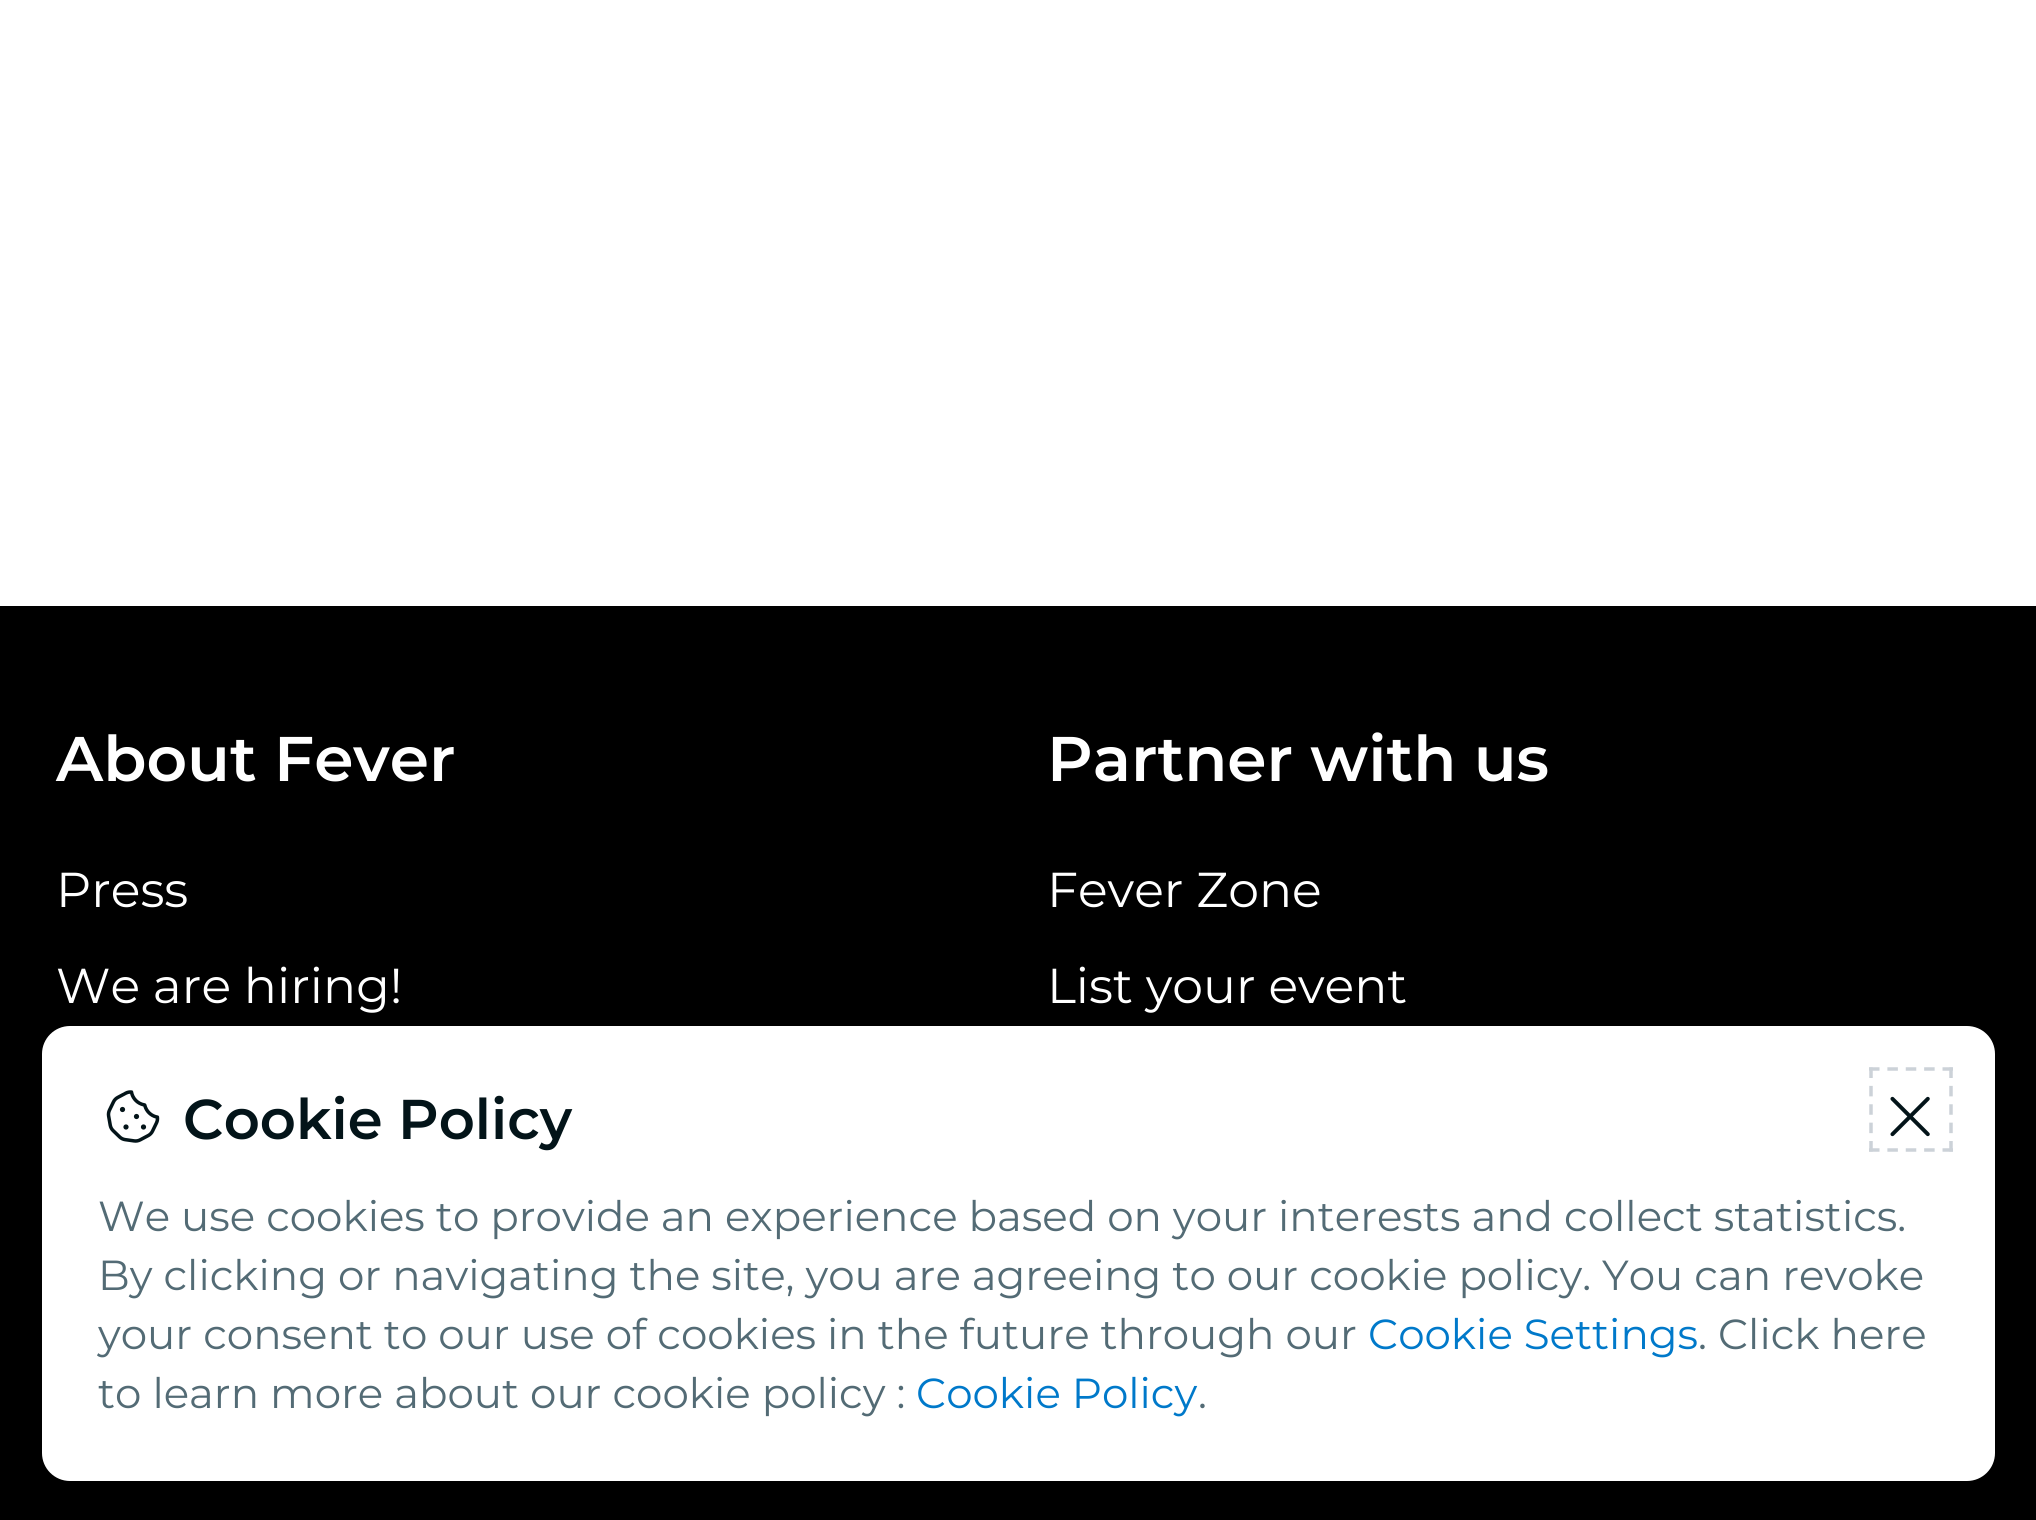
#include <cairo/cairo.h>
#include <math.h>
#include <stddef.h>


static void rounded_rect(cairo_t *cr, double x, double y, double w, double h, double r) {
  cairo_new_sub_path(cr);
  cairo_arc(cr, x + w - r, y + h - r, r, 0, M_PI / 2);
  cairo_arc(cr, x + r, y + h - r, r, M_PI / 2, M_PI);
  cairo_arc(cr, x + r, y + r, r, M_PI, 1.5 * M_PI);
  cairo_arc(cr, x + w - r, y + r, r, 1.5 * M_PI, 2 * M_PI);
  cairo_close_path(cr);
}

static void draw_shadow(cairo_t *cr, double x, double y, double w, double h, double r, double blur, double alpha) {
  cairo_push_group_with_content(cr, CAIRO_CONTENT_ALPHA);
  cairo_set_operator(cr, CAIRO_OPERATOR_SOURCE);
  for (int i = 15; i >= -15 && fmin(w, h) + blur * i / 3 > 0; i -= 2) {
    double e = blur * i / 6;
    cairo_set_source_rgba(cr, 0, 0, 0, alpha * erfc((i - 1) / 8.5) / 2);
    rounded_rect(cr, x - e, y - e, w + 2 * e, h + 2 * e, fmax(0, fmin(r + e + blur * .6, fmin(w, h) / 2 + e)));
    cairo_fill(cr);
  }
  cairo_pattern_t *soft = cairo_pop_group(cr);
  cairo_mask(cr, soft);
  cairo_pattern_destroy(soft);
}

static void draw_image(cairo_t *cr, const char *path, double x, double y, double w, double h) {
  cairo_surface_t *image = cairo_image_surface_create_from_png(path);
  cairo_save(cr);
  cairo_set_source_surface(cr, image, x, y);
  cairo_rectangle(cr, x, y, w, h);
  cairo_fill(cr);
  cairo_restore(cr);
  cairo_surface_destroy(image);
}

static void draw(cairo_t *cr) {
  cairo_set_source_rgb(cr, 1, 1, 1);
  cairo_paint(cr);
  cairo_set_source_rgb(cr, 0, 0, 0);
  cairo_rectangle(cr, 0, 606, 2036, 914);
  cairo_fill(cr);
  cairo_set_source_rgb(cr, 0, 0, 0);
  draw_shadow(cr, 42, 1019, 1953, 455, 28, 14, 0.16);
  cairo_set_source_rgb(cr, 1, 1, 1);
  rounded_rect(cr, 42, 1026, 1953, 455, 28);
  cairo_fill(cr);
  cairo_new_path(cr);
  cairo_move_to(cr, 1869, 1069);
  cairo_line_to(cr, 1953, 1069);
  cairo_set_source_rgb(cr, 204 / 255.0, 210 / 255.0, 216 / 255.0);
  cairo_set_line_width(cr, 3.5);
  cairo_set_dash(cr, (double[]){10.5, 7.88}, 2, 0);
  cairo_stroke(cr);
  cairo_new_path(cr);
  cairo_move_to(cr, 1951, 1067.5);
  cairo_line_to(cr, 1951, 1151.5);
  cairo_stroke(cr);
  cairo_new_path(cr);
  cairo_move_to(cr, 1869, 1150);
  cairo_line_to(cr, 1953, 1150);
  cairo_stroke(cr);
  cairo_new_path(cr);
  cairo_move_to(cr, 1871, 1067.5);
  cairo_line_to(cr, 1871, 1151.5);
  cairo_stroke(cr);
  draw_image(cr, "images/1.png", 1890, 1096, 40, 41);
  draw_image(cr, "images/2.png", 106, 1090, 54, 53);
  cairo_select_font_face(cr, "Montserrat SemiBold", CAIRO_FONT_SLANT_NORMAL, CAIRO_FONT_WEIGHT_NORMAL);
  cairo_set_font_size(cr, 63);
  cairo_set_source_rgb(cr, 1, 1, 1);
  cairo_move_to(cr, 56, 781);
  cairo_show_text(cr, "About Fever");
  cairo_select_font_face(cr, "Montserrat", CAIRO_FONT_SLANT_NORMAL, CAIRO_FONT_WEIGHT_NORMAL);
  cairo_set_font_size(cr, 49);
  cairo_move_to(cr, 56, 907);
  cairo_show_text(cr, "Press");
  cairo_move_to(cr, 56, 1003);
  cairo_show_text(cr, "We are hiring!");
  cairo_select_font_face(cr, "Montserrat SemiBold", CAIRO_FONT_SLANT_NORMAL, CAIRO_FONT_WEIGHT_NORMAL);
  cairo_set_font_size(cr, 63);
  cairo_move_to(cr, 1047, 781);
  cairo_show_text(cr, "Partner with us");
  cairo_select_font_face(cr, "Montserrat", CAIRO_FONT_SLANT_NORMAL, CAIRO_FONT_WEIGHT_NORMAL);
  cairo_set_font_size(cr, 49);
  cairo_move_to(cr, 1047, 907);
  cairo_show_text(cr, "Fever Zone");
  cairo_move_to(cr, 1047, 1003);
  cairo_show_text(cr, "List your event");
  cairo_select_font_face(cr, "Montserrat SemiBold", CAIRO_FONT_SLANT_NORMAL, CAIRO_FONT_WEIGHT_NORMAL);
  cairo_set_font_size(cr, 56);
  cairo_set_source_rgb(cr, 3 / 255.0, 20 / 255.0, 25 / 255.0);
  cairo_move_to(cr, 183, 1139);
  cairo_show_text(cr, "Cookie Policy");
  cairo_select_font_face(cr, "Montserrat", CAIRO_FONT_SLANT_NORMAL, CAIRO_FONT_WEIGHT_NORMAL);
  cairo_set_font_size(cr, 42);
  cairo_set_source_rgb(cr, 83 / 255.0, 107 / 255.0, 117 / 255.0);
  cairo_move_to(cr, 98, 1231);
  cairo_show_text(cr, "We use cookies to provide an experience based on your interests and collect statistics.");
  cairo_move_to(cr, 98, 1290);
  cairo_show_text(cr, "By clicking or navigating the site, you are agreeing to our cookie policy. You can revoke");
  cairo_move_to(cr, 98, 1349);
  cairo_show_text(cr, "your consent to our use of cookies in the future through our");
  cairo_set_source_rgb(cr, 0, 121 / 255.0, 202 / 255.0);
  cairo_move_to(cr, 1368, 1349);
  cairo_show_text(cr, "Cookie Settings");
  cairo_set_source_rgb(cr, 83 / 255.0, 107 / 255.0, 117 / 255.0);
  cairo_move_to(cr, 1698, 1349);
  cairo_show_text(cr, ". Click here");
  cairo_move_to(cr, 98, 1408);
  cairo_show_text(cr, "to learn more about our cookie policy :");
  cairo_set_source_rgb(cr, 0, 121 / 255.0, 202 / 255.0);
  cairo_move_to(cr, 916, 1408);
  cairo_show_text(cr, "Cookie Policy");
  cairo_set_source_rgb(cr, 83 / 255.0, 107 / 255.0, 117 / 255.0);
  cairo_move_to(cr, 1198, 1408);
  cairo_show_text(cr, ".");
}

int main(void) {
  cairo_surface_t *surface = cairo_image_surface_create(CAIRO_FORMAT_RGB24, 2036, 1520);
  cairo_t *cr = cairo_create(surface);
  cairo_font_options_t *options = cairo_font_options_create();
  cairo_font_options_set_hint_metrics(options, CAIRO_HINT_METRICS_OFF);
  cairo_font_options_set_hint_style(options, CAIRO_HINT_STYLE_NONE);
  cairo_set_font_options(cr, options);
  cairo_set_miter_limit(cr, 4);
  draw(cr);
  cairo_surface_write_to_png(surface, "out.png");
  cairo_font_options_destroy(options);
  cairo_destroy(cr);
  cairo_surface_destroy(surface);
  return 0;
}
